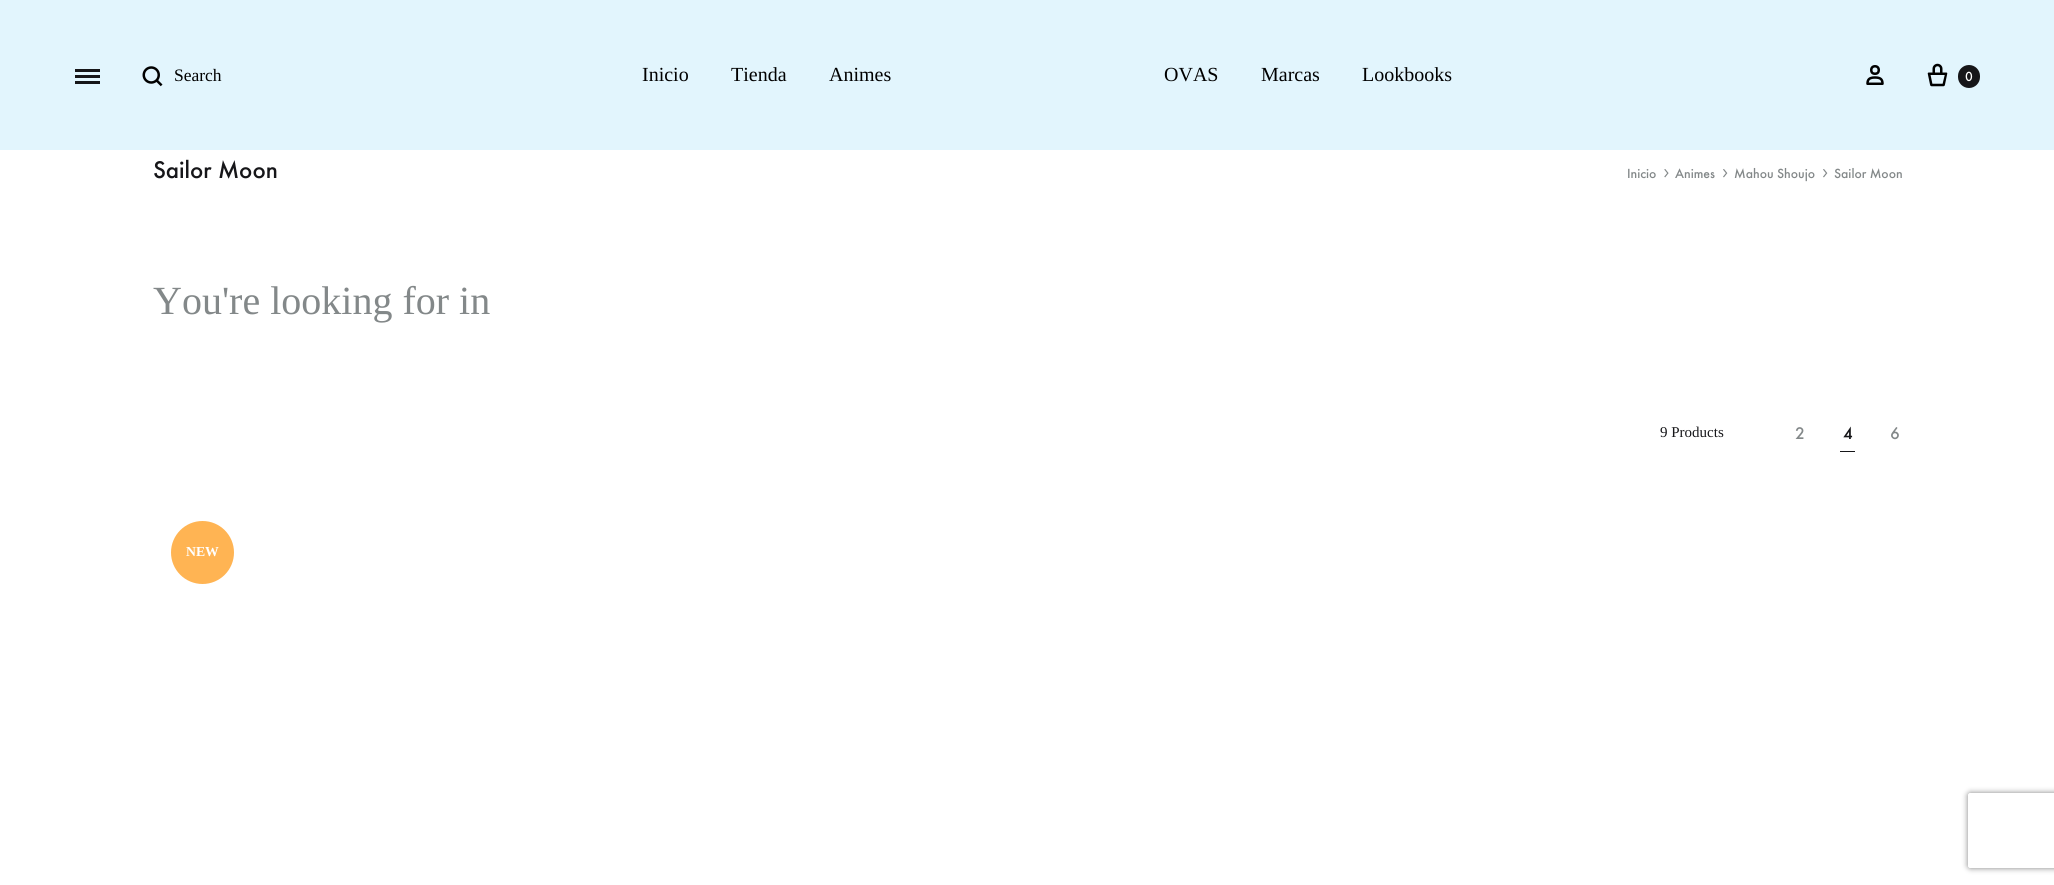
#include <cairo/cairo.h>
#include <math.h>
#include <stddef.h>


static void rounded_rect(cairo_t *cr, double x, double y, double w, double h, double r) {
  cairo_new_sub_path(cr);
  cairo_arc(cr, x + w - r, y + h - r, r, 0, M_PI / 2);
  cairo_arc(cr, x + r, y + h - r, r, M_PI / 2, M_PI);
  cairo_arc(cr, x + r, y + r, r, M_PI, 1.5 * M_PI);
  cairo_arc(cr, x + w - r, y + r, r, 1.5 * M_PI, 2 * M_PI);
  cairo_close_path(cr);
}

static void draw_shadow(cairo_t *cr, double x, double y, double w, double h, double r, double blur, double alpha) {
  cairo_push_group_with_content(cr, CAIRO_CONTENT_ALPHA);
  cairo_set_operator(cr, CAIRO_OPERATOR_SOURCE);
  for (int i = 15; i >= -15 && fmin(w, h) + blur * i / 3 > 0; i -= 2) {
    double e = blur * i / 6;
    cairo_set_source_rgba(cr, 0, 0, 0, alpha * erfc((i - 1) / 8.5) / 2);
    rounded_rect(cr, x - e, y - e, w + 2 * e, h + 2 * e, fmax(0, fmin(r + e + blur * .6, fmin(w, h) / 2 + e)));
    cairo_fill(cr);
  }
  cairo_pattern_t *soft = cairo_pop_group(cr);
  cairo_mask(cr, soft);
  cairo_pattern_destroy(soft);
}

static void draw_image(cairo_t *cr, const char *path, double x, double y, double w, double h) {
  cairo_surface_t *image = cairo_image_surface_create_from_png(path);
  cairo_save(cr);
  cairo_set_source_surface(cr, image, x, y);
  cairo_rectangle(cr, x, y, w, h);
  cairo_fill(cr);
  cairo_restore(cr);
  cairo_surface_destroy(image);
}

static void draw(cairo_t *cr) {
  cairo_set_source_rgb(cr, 1, 1, 1);
  cairo_paint(cr);
  cairo_set_source_rgb(cr, 226 / 255.0, 245 / 255.0, 253 / 255.0);
  cairo_rectangle(cr, 0, 0, 2054, 150);
  cairo_fill(cr);
  cairo_set_source_rgb(cr, 22 / 255.0, 22 / 255.0, 25 / 255.0);
  cairo_rectangle(cr, 75, 75, 25, 3);
  cairo_fill(cr);
  cairo_rectangle(cr, 75, 69, 25, 3);
  cairo_fill(cr);
  cairo_rectangle(cr, 75, 81, 25, 3);
  cairo_fill(cr);
  draw_image(cr, "images/1.png", 142, 66, 21, 21);
  draw_image(cr, "images/2.png", 1866, 65, 18, 20);
  draw_image(cr, "images/3.png", 1927, 63, 21, 24);
  rounded_rect(cr, 1958, 65, 22, 23, 11);
  cairo_fill(cr);
  draw_image(cr, "images/4.png", 1664, 169, 5, 9);
  draw_image(cr, "images/5.png", 1723, 169, 5, 9);
  draw_image(cr, "images/5.png", 1823, 169, 5, 9);
  cairo_rectangle(cr, 1840, 451, 15, 1);
  cairo_fill(cr);
  cairo_set_source_rgb(cr, 1, 180 / 255.0, 83 / 255.0);
  cairo_arc(cr, 202.5, 552.5, 31.5, 0, 2 * M_PI);
  cairo_fill(cr);
  cairo_save(cr);
  cairo_set_fill_rule(cr, CAIRO_FILL_RULE_EVEN_ODD);
  cairo_new_path(cr);
  cairo_move_to(cr, 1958, 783);
  cairo_line_to(cr, 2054, 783);
  cairo_line_to(cr, 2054, 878);
  cairo_line_to(cr, 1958, 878);
  cairo_close_path(cr);
  cairo_move_to(cr, 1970.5, 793);
  cairo_line_to(cr, 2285.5, 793);
  cairo_curve_to(cr, 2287, 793, 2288, 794, 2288, 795.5);
  cairo_line_to(cr, 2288, 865.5);
  cairo_curve_to(cr, 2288, 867, 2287, 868, 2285.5, 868);
  cairo_line_to(cr, 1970.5, 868);
  cairo_curve_to(cr, 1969, 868, 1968, 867, 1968, 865.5);
  cairo_line_to(cr, 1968, 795.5);
  cairo_curve_to(cr, 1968, 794, 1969, 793, 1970.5, 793);
  cairo_close_path(cr);
  cairo_clip(cr);
  cairo_set_source_rgb(cr, 128 / 255.0, 128 / 255.0, 128 / 255.0);
  draw_shadow(cr, 1968, 793, 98, 75, 2.5, 3, 1);
  cairo_restore(cr);
  cairo_select_font_face(cr, "Liberation Serif", CAIRO_FONT_SLANT_NORMAL, CAIRO_FONT_WEIGHT_NORMAL);
  cairo_set_font_size(cr, 17.5);
  cairo_set_source_rgb(cr, 0, 0, 0);
  cairo_move_to(cr, 174, 81);
  cairo_show_text(cr, "Search");
  cairo_set_font_size(cr, 20);
  cairo_move_to(cr, 642, 81);
  cairo_show_text(cr, "Inicio");
  cairo_move_to(cr, 731, 81);
  cairo_show_text(cr, "Tienda");
  cairo_move_to(cr, 829, 81);
  cairo_show_text(cr, "Animes");
  cairo_move_to(cr, 1164, 81);
  cairo_show_text(cr, "OVAS");
  cairo_move_to(cr, 1261, 81);
  cairo_show_text(cr, "Marcas");
  cairo_move_to(cr, 1362, 81);
  cairo_show_text(cr, "Lookbooks");
  cairo_select_font_face(cr, "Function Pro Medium", CAIRO_FONT_SLANT_NORMAL, CAIRO_FONT_WEIGHT_NORMAL);
  cairo_set_font_size(cr, 13.75);
  cairo_set_source_rgb(cr, 1, 1, 1);
  cairo_move_to(cr, 1965, 81);
  cairo_show_text(cr, "0");
  cairo_set_font_size(cr, 25);
  cairo_set_source_rgb(cr, 22 / 255.0, 22 / 255.0, 25 / 255.0);
  cairo_move_to(cr, 153, 178);
  cairo_show_text(cr, "Sailor Moon");
  cairo_set_font_size(cr, 13.75);
  cairo_set_source_rgb(cr, 131 / 255.0, 136 / 255.0, 137 / 255.0);
  cairo_move_to(cr, 1627, 178);
  cairo_show_text(cr, "Inicio");
  cairo_move_to(cr, 1675, 178);
  cairo_show_text(cr, "Animes");
  cairo_move_to(cr, 1734, 178);
  cairo_show_text(cr, "Mahou Shoujo");
  cairo_move_to(cr, 1834, 178);
  cairo_show_text(cr, "Sailor Moon");
  cairo_select_font_face(cr, "Liberation Serif", CAIRO_FONT_SLANT_NORMAL, CAIRO_FONT_WEIGHT_NORMAL);
  cairo_set_font_size(cr, 40);
  cairo_move_to(cr, 153, 314);
  cairo_show_text(cr, "You're looking for in");
  cairo_set_font_size(cr, 15);
  cairo_set_source_rgb(cr, 22 / 255.0, 22 / 255.0, 25 / 255.0);
  cairo_move_to(cr, 1660, 437);
  cairo_show_text(cr, "9 Products");
  cairo_select_font_face(cr, "Function Pro Medium", CAIRO_FONT_SLANT_NORMAL, CAIRO_FONT_WEIGHT_NORMAL);
  cairo_set_font_size(cr, 17.5);
  cairo_set_source_rgb(cr, 131 / 255.0, 136 / 255.0, 137 / 255.0);
  cairo_move_to(cr, 1795, 439);
  cairo_show_text(cr, "2");
  cairo_set_source_rgb(cr, 22 / 255.0, 22 / 255.0, 25 / 255.0);
  cairo_move_to(cr, 1843, 439);
  cairo_show_text(cr, "4");
  cairo_set_source_rgb(cr, 131 / 255.0, 136 / 255.0, 137 / 255.0);
  cairo_move_to(cr, 1890, 439);
  cairo_show_text(cr, "6");
  cairo_select_font_face(cr, "Liberation Serif", CAIRO_FONT_SLANT_NORMAL, CAIRO_FONT_WEIGHT_BOLD);
  cairo_set_font_size(cr, 13.75);
  cairo_set_source_rgb(cr, 1, 1, 1);
  cairo_move_to(cr, 186, 556);
  cairo_show_text(cr, "NEW");
}

int main(void) {
  cairo_surface_t *surface = cairo_image_surface_create(CAIRO_FORMAT_RGB24, 2054, 885);
  cairo_t *cr = cairo_create(surface);
  cairo_font_options_t *options = cairo_font_options_create();
  cairo_font_options_set_hint_metrics(options, CAIRO_HINT_METRICS_OFF);
  cairo_font_options_set_hint_style(options, CAIRO_HINT_STYLE_NONE);
  cairo_set_font_options(cr, options);
  cairo_set_miter_limit(cr, 4);
  draw(cr);
  cairo_surface_write_to_png(surface, "out.png");
  cairo_font_options_destroy(options);
  cairo_destroy(cr);
  cairo_surface_destroy(surface);
  return 0;
}
